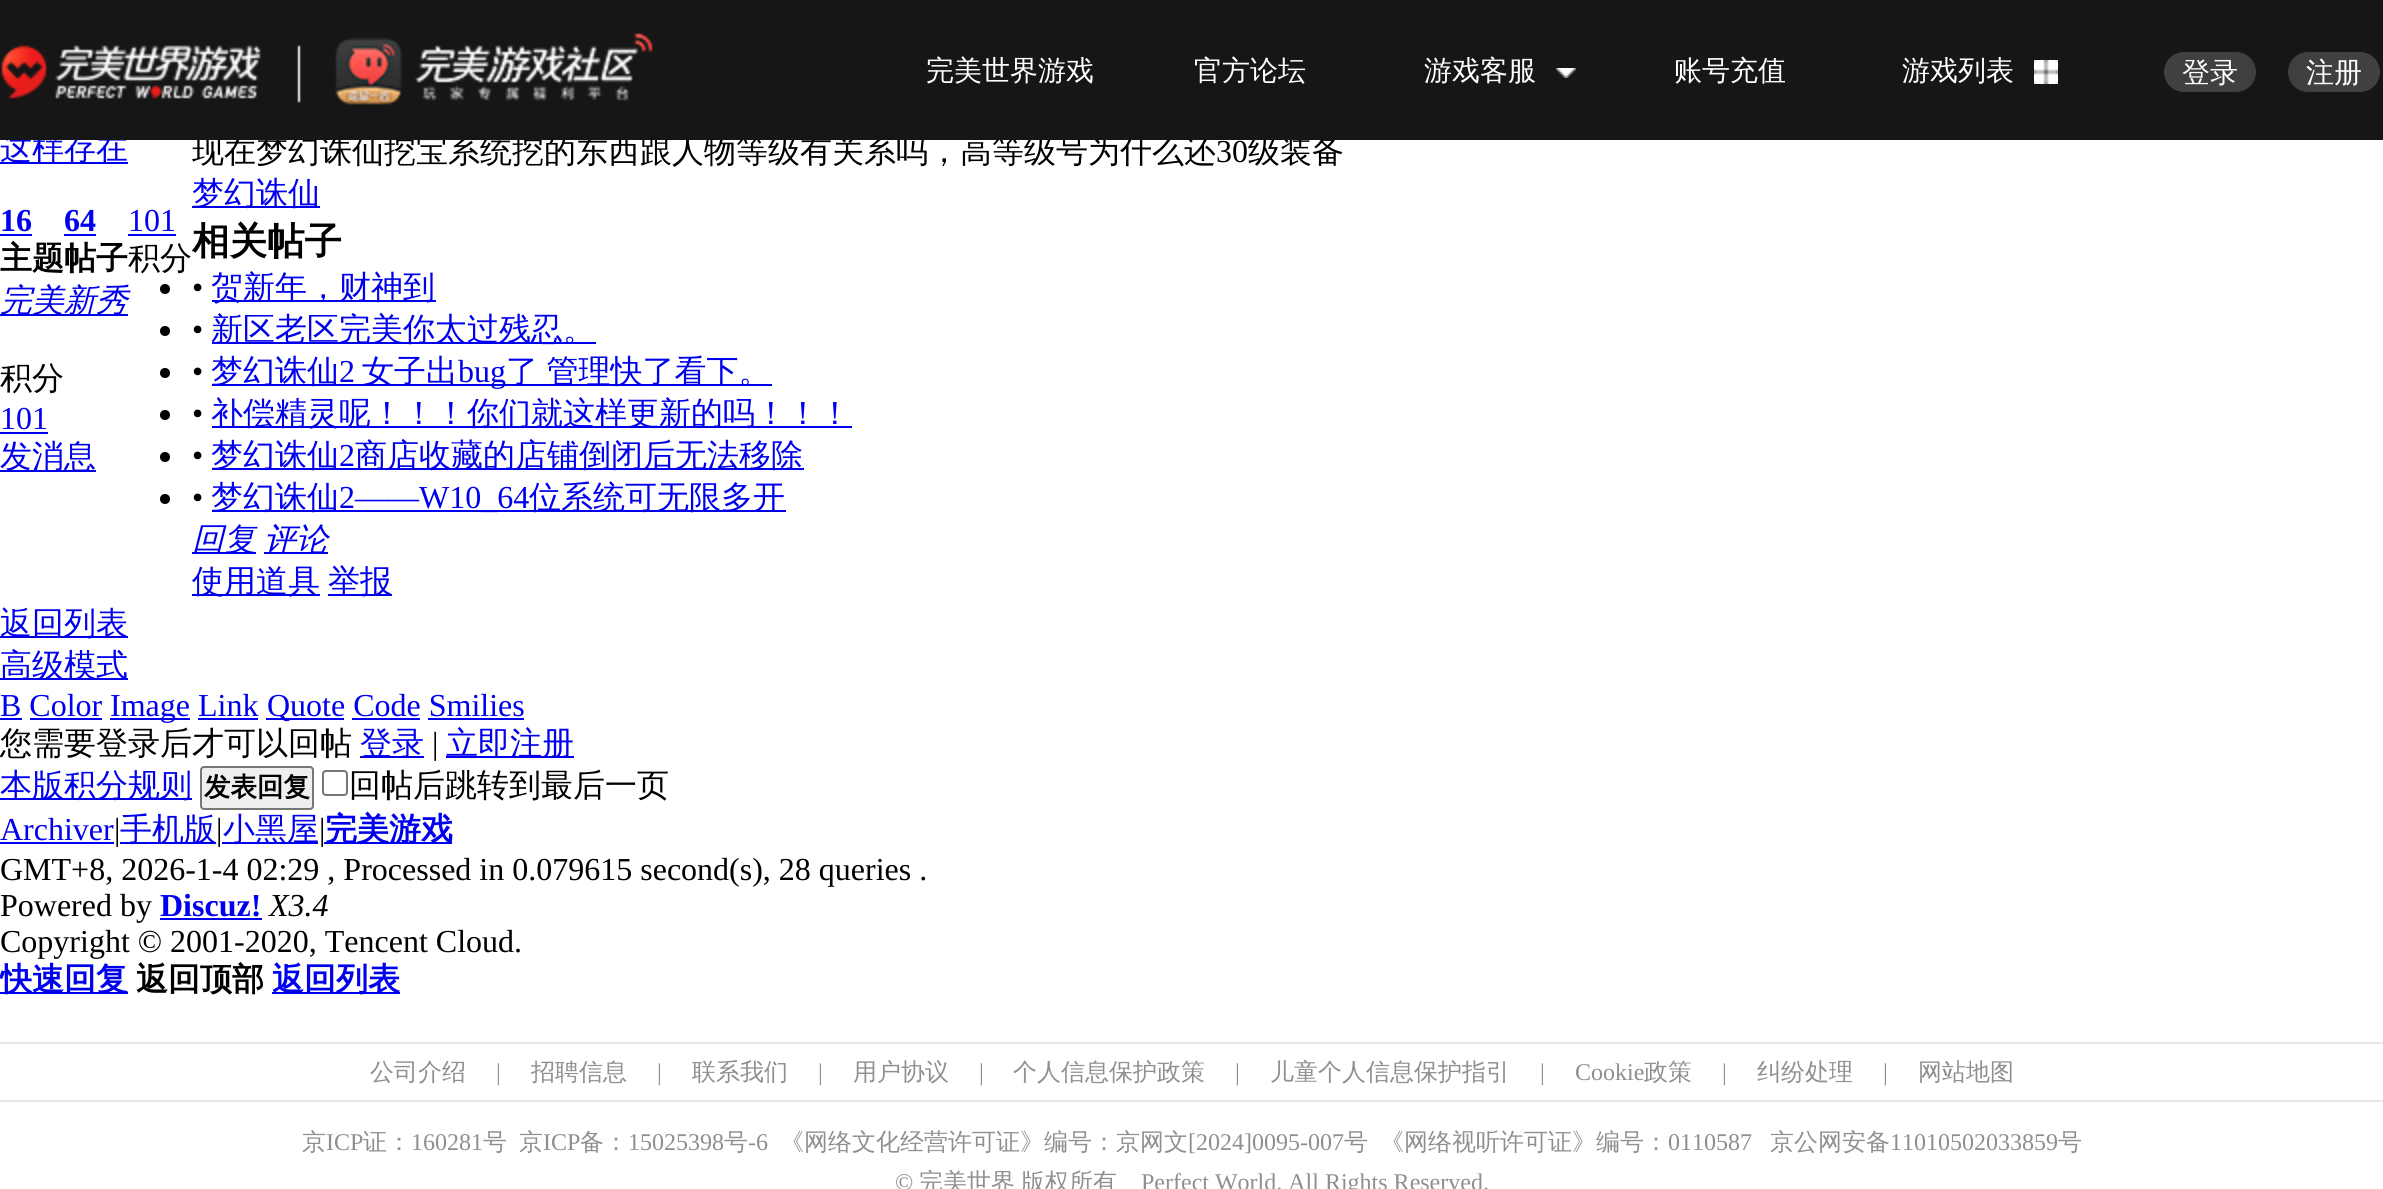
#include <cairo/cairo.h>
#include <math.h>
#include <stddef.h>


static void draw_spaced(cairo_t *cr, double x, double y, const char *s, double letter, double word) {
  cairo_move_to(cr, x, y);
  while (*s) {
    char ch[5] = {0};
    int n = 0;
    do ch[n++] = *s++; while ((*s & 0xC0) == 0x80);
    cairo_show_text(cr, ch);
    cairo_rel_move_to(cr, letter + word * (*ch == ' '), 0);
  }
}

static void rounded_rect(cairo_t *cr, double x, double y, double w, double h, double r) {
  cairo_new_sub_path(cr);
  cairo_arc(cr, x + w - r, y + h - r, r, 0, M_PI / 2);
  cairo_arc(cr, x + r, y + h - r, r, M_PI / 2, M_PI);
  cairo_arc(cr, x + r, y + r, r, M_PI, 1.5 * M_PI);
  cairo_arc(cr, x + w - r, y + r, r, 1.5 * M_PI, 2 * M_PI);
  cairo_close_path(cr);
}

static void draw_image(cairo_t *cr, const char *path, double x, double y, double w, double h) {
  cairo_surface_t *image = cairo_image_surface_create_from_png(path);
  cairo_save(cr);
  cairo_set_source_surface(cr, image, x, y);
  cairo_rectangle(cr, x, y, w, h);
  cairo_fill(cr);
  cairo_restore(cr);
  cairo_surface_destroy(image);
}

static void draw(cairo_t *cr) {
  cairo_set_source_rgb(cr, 1, 1, 1);
  cairo_paint(cr);
  cairo_set_source_rgb(cr, 0, 0, 238 / 255.0);
  cairo_rectangle(cr, 0, 162, 128, 2);
  cairo_fill(cr);
  cairo_rectangle(cr, 0, 234, 32, 2);
  cairo_fill(cr);
  cairo_rectangle(cr, 64, 234, 32, 2);
  cairo_fill(cr);
  cairo_rectangle(cr, 128, 234, 48, 2);
  cairo_fill(cr);
  cairo_rectangle(cr, 0, 314, 128, 2);
  cairo_fill(cr);
  cairo_rectangle(cr, 0, 432, 48, 2);
  cairo_fill(cr);
  cairo_rectangle(cr, 0, 470, 96, 2);
  cairo_fill(cr);
  cairo_rectangle(cr, 192, 206, 128, 2);
  cairo_fill(cr);
  cairo_set_source_rgb(cr, 0, 0, 0);
  cairo_arc(cr, 165, 289, 5, 0, 2 * M_PI);
  cairo_fill(cr);
  cairo_set_source_rgb(cr, 0, 0, 238 / 255.0);
  cairo_rectangle(cr, 212, 300, 224, 2);
  cairo_fill(cr);
  cairo_set_source_rgb(cr, 0, 0, 0);
  cairo_arc(cr, 165, 331, 5, 0, 2 * M_PI);
  cairo_fill(cr);
  cairo_set_source_rgb(cr, 0, 0, 238 / 255.0);
  cairo_rectangle(cr, 212, 342, 384, 2);
  cairo_fill(cr);
  cairo_set_source_rgb(cr, 0, 0, 0);
  cairo_arc(cr, 165, 373, 5, 0, 2 * M_PI);
  cairo_fill(cr);
  cairo_set_source_rgb(cr, 0, 0, 238 / 255.0);
  cairo_rectangle(cr, 212, 384, 560, 2);
  cairo_fill(cr);
  cairo_set_source_rgb(cr, 0, 0, 0);
  cairo_arc(cr, 165, 415, 5, 0, 2 * M_PI);
  cairo_fill(cr);
  cairo_set_source_rgb(cr, 0, 0, 238 / 255.0);
  cairo_rectangle(cr, 212, 426, 640, 2);
  cairo_fill(cr);
  cairo_set_source_rgb(cr, 0, 0, 0);
  cairo_arc(cr, 165, 457, 5, 0, 2 * M_PI);
  cairo_fill(cr);
  cairo_set_source_rgb(cr, 0, 0, 238 / 255.0);
  cairo_rectangle(cr, 212, 468, 592, 2);
  cairo_fill(cr);
  cairo_set_source_rgb(cr, 0, 0, 0);
  cairo_arc(cr, 165, 499, 5, 0, 2 * M_PI);
  cairo_fill(cr);
  cairo_set_source_rgb(cr, 0, 0, 238 / 255.0);
  cairo_rectangle(cr, 212, 510, 574, 2);
  cairo_fill(cr);
  cairo_rectangle(cr, 192, 552, 64, 2);
  cairo_fill(cr);
  cairo_rectangle(cr, 264, 552, 64, 2);
  cairo_fill(cr);
  cairo_rectangle(cr, 192, 594, 128, 2);
  cairo_fill(cr);
  cairo_rectangle(cr, 328, 594, 64, 2);
  cairo_fill(cr);
  cairo_rectangle(cr, 0, 636, 128, 2);
  cairo_fill(cr);
  cairo_rectangle(cr, 0, 678, 128, 2);
  cairo_fill(cr);
  cairo_rectangle(cr, 0, 718, 22, 2);
  cairo_fill(cr);
  cairo_rectangle(cr, 110, 718, 80, 2);
  cairo_fill(cr);
  cairo_rectangle(cr, 266, 718, 78, 2);
  cairo_fill(cr);
  cairo_rectangle(cr, 30, 718, 72, 2);
  cairo_fill(cr);
  cairo_rectangle(cr, 198, 718, 60, 2);
  cairo_fill(cr);
  cairo_rectangle(cr, 352, 718, 68, 2);
  cairo_fill(cr);
  cairo_rectangle(cr, 428, 718, 96, 2);
  cairo_fill(cr);
  cairo_rectangle(cr, 360, 756, 64, 2);
  cairo_fill(cr);
  cairo_rectangle(cr, 446, 756, 128, 2);
  cairo_fill(cr);
  cairo_rectangle(cr, 0, 798, 192, 2);
  cairo_fill(cr);
  cairo_set_source_rgb(cr, 239 / 255.0, 239 / 255.0, 239 / 255.0);
  rounded_rect(cr, 201, 767, 112, 42, 3);
  cairo_fill_preserve(cr);
  cairo_set_source_rgb(cr, 118 / 255.0, 118 / 255.0, 118 / 255.0);
  cairo_stroke(cr);
  rounded_rect(cr, 323, 771, 24, 24, 3);
  cairo_stroke(cr);
  cairo_set_source_rgb(cr, 0, 0, 238 / 255.0);
  cairo_rectangle(cr, 0, 842, 114, 2);
  cairo_fill(cr);
  cairo_rectangle(cr, 120, 842, 96, 2);
  cairo_fill(cr);
  cairo_rectangle(cr, 222, 842, 96, 2);
  cairo_fill(cr);
  cairo_rectangle(cr, 324, 842, 128, 2);
  cairo_fill(cr);
  cairo_rectangle(cr, 160, 918, 102, 2);
  cairo_fill(cr);
  cairo_rectangle(cr, 0, 992, 128, 2);
  cairo_fill(cr);
  cairo_rectangle(cr, 272, 992, 128, 2);
  cairo_fill(cr);
  cairo_set_source_rgb(cr, 230 / 255.0, 230 / 255.0, 230 / 255.0);
  cairo_rectangle(cr, 0, 1042, 2383, 2);
  cairo_fill(cr);
  cairo_rectangle(cr, 0, 1100, 2383, 2);
  cairo_fill(cr);
  cairo_select_font_face(cr, "WenQuanYi Zen Hei Medium", CAIRO_FONT_SLANT_NORMAL, CAIRO_FONT_WEIGHT_NORMAL);
  cairo_set_font_size(cr, 32);
  cairo_set_source_rgb(cr, 0, 0, 238 / 255.0);
  cairo_move_to(cr, 0, 159);
  cairo_show_text(cr, "这样存在");
  cairo_select_font_face(cr, "Liberation Serif", CAIRO_FONT_SLANT_NORMAL, CAIRO_FONT_WEIGHT_BOLD);
  cairo_move_to(cr, 0, 231);
  cairo_show_text(cr, "16");
  cairo_select_font_face(cr, "WenQuanYi Zen Hei", CAIRO_FONT_SLANT_NORMAL, CAIRO_FONT_WEIGHT_BOLD);
  cairo_set_source_rgb(cr, 0, 0, 0);
  cairo_move_to(cr, 0, 269);
  cairo_show_text(cr, "主题帖子");
  cairo_select_font_face(cr, "Liberation Serif", CAIRO_FONT_SLANT_NORMAL, CAIRO_FONT_WEIGHT_BOLD);
  cairo_set_source_rgb(cr, 0, 0, 238 / 255.0);
  cairo_move_to(cr, 64, 231);
  cairo_show_text(cr, "64");
  cairo_select_font_face(cr, "Liberation Serif", CAIRO_FONT_SLANT_NORMAL, CAIRO_FONT_WEIGHT_NORMAL);
  cairo_move_to(cr, 128, 231);
  cairo_show_text(cr, "101");
  cairo_select_font_face(cr, "WenQuanYi Zen Hei Medium", CAIRO_FONT_SLANT_NORMAL, CAIRO_FONT_WEIGHT_NORMAL);
  cairo_set_source_rgb(cr, 0, 0, 0);
  cairo_move_to(cr, 128, 269);
  cairo_show_text(cr, "积分");
  cairo_select_font_face(cr, "WenQuanYi Zen Hei Medium", CAIRO_FONT_SLANT_ITALIC, CAIRO_FONT_WEIGHT_NORMAL);
  cairo_set_source_rgb(cr, 0, 0, 238 / 255.0);
  cairo_move_to(cr, 0, 311);
  cairo_show_text(cr, "完美新秀");
  cairo_select_font_face(cr, "WenQuanYi Zen Hei Medium", CAIRO_FONT_SLANT_NORMAL, CAIRO_FONT_WEIGHT_NORMAL);
  cairo_set_source_rgb(cr, 0, 0, 0);
  cairo_move_to(cr, 0, 389);
  cairo_show_text(cr, "积分");
  cairo_select_font_face(cr, "Liberation Serif", CAIRO_FONT_SLANT_NORMAL, CAIRO_FONT_WEIGHT_NORMAL);
  cairo_set_source_rgb(cr, 0, 0, 238 / 255.0);
  cairo_move_to(cr, 0, 429);
  cairo_show_text(cr, "101");
  cairo_select_font_face(cr, "WenQuanYi Zen Hei Medium", CAIRO_FONT_SLANT_NORMAL, CAIRO_FONT_WEIGHT_NORMAL);
  cairo_move_to(cr, 0, 467);
  cairo_show_text(cr, "发消息");
  cairo_set_source_rgb(cr, 0, 0, 0);
  cairo_move_to(cr, 192, 162);
  cairo_show_text(cr, "现在梦幻诛仙挖宝系统挖的东西跟人物等级有关系吗，高等级号为什么还");
  cairo_select_font_face(cr, "Liberation Serif", CAIRO_FONT_SLANT_NORMAL, CAIRO_FONT_WEIGHT_NORMAL);
  cairo_move_to(cr, 1216, 162);
  cairo_show_text(cr, "30");
  cairo_select_font_face(cr, "WenQuanYi Zen Hei Medium", CAIRO_FONT_SLANT_NORMAL, CAIRO_FONT_WEIGHT_NORMAL);
  cairo_move_to(cr, 1248, 162);
  cairo_show_text(cr, "级装备");
  cairo_set_source_rgb(cr, 22 / 255.0, 22 / 255.0, 22 / 255.0);
  cairo_rectangle(cr, 0, 0, 2383, 140);
  cairo_fill(cr);
  cairo_set_font_size(cr, 28);
  cairo_set_source_rgb(cr, 1, 1, 1);
  cairo_move_to(cr, 926, 80);
  cairo_show_text(cr, "完美世界游戏");
  cairo_move_to(cr, 1194, 80);
  cairo_show_text(cr, "官方论坛");
  draw_image(cr, "images/2.png", 1556, 68, 20, 10);
  cairo_move_to(cr, 1424, 80);
  cairo_show_text(cr, "游戏客服");
  cairo_move_to(cr, 1674, 80);
  cairo_show_text(cr, "账号充值");
  draw_image(cr, "images/3.png", 2034, 60, 24, 24);
  cairo_move_to(cr, 1902, 80);
  cairo_show_text(cr, "游戏列表");
  draw_image(cr, "images/1.png", 1, 33, 652, 72);
  cairo_set_source_rgb(cr, 65 / 255.0, 64 / 255.0, 64 / 255.0);
  rounded_rect(cr, 2164, 52, 92, 40, 20);
  cairo_fill(cr);
  cairo_set_source_rgb(cr, 1, 1, 1);
  cairo_move_to(cr, 2182, 82);
  cairo_show_text(cr, "登录");
  cairo_set_source_rgb(cr, 65 / 255.0, 64 / 255.0, 64 / 255.0);
  rounded_rect(cr, 2288, 52, 92, 40, 20);
  cairo_fill(cr);
  cairo_set_source_rgb(cr, 1, 1, 1);
  cairo_move_to(cr, 2306, 82);
  cairo_show_text(cr, "注册");
  cairo_set_font_size(cr, 32);
  cairo_set_source_rgb(cr, 0, 0, 238 / 255.0);
  cairo_move_to(cr, 192, 204);
  cairo_show_text(cr, "梦幻诛仙");
  cairo_select_font_face(cr, "WenQuanYi Zen Hei", CAIRO_FONT_SLANT_NORMAL, CAIRO_FONT_WEIGHT_BOLD);
  cairo_set_font_size(cr, 37.5);
  cairo_set_source_rgb(cr, 0, 0, 0);
  cairo_move_to(cr, 192, 254);
  cairo_show_text(cr, "相关帖子");
  cairo_select_font_face(cr, "Liberation Serif", CAIRO_FONT_SLANT_NORMAL, CAIRO_FONT_WEIGHT_NORMAL);
  cairo_set_font_size(cr, 32);
  cairo_move_to(cr, 192, 298);
  cairo_show_text(cr, "•");
  cairo_select_font_face(cr, "WenQuanYi Zen Hei Medium", CAIRO_FONT_SLANT_NORMAL, CAIRO_FONT_WEIGHT_NORMAL);
  cairo_set_source_rgb(cr, 0, 0, 238 / 255.0);
  cairo_move_to(cr, 211, 298);
  cairo_show_text(cr, "贺新年，财神到");
  cairo_select_font_face(cr, "Liberation Serif", CAIRO_FONT_SLANT_NORMAL, CAIRO_FONT_WEIGHT_NORMAL);
  cairo_set_source_rgb(cr, 0, 0, 0);
  cairo_move_to(cr, 192, 340);
  cairo_show_text(cr, "•");
  cairo_select_font_face(cr, "WenQuanYi Zen Hei Medium", CAIRO_FONT_SLANT_NORMAL, CAIRO_FONT_WEIGHT_NORMAL);
  cairo_set_source_rgb(cr, 0, 0, 238 / 255.0);
  cairo_move_to(cr, 211, 340);
  cairo_show_text(cr, "新区老区完美你太过残忍。");
  cairo_select_font_face(cr, "Liberation Serif", CAIRO_FONT_SLANT_NORMAL, CAIRO_FONT_WEIGHT_NORMAL);
  cairo_set_source_rgb(cr, 0, 0, 0);
  cairo_move_to(cr, 192, 382);
  cairo_show_text(cr, "•");
  cairo_select_font_face(cr, "WenQuanYi Zen Hei Medium", CAIRO_FONT_SLANT_NORMAL, CAIRO_FONT_WEIGHT_NORMAL);
  cairo_set_source_rgb(cr, 0, 0, 238 / 255.0);
  cairo_move_to(cr, 211, 382);
  cairo_show_text(cr, "梦幻诛仙");
  cairo_select_font_face(cr, "Liberation Serif", CAIRO_FONT_SLANT_NORMAL, CAIRO_FONT_WEIGHT_NORMAL);
  cairo_move_to(cr, 339, 382);
  cairo_show_text(cr, "2");
  cairo_select_font_face(cr, "WenQuanYi Zen Hei Medium", CAIRO_FONT_SLANT_NORMAL, CAIRO_FONT_WEIGHT_NORMAL);
  cairo_move_to(cr, 362, 382);
  cairo_show_text(cr, "女子出");
  cairo_select_font_face(cr, "Liberation Serif", CAIRO_FONT_SLANT_NORMAL, CAIRO_FONT_WEIGHT_NORMAL);
  cairo_move_to(cr, 458, 382);
  cairo_show_text(cr, "bug");
  cairo_select_font_face(cr, "WenQuanYi Zen Hei Medium", CAIRO_FONT_SLANT_NORMAL, CAIRO_FONT_WEIGHT_NORMAL);
  draw_spaced(cr, 506, 382, "了 管理快了看下。", 0, -1);
  cairo_select_font_face(cr, "Liberation Serif", CAIRO_FONT_SLANT_NORMAL, CAIRO_FONT_WEIGHT_NORMAL);
  cairo_set_source_rgb(cr, 0, 0, 0);
  cairo_move_to(cr, 192, 424);
  cairo_show_text(cr, "•");
  cairo_select_font_face(cr, "WenQuanYi Zen Hei Medium", CAIRO_FONT_SLANT_NORMAL, CAIRO_FONT_WEIGHT_NORMAL);
  cairo_set_source_rgb(cr, 0, 0, 238 / 255.0);
  cairo_move_to(cr, 211, 424);
  cairo_show_text(cr, "补偿精灵呢！！！你们就这样更新的吗！！！");
  cairo_select_font_face(cr, "Liberation Serif", CAIRO_FONT_SLANT_NORMAL, CAIRO_FONT_WEIGHT_NORMAL);
  cairo_set_source_rgb(cr, 0, 0, 0);
  cairo_move_to(cr, 192, 466);
  cairo_show_text(cr, "•");
  cairo_select_font_face(cr, "WenQuanYi Zen Hei Medium", CAIRO_FONT_SLANT_NORMAL, CAIRO_FONT_WEIGHT_NORMAL);
  cairo_set_source_rgb(cr, 0, 0, 238 / 255.0);
  cairo_move_to(cr, 211, 466);
  cairo_show_text(cr, "梦幻诛仙");
  cairo_select_font_face(cr, "Liberation Serif", CAIRO_FONT_SLANT_NORMAL, CAIRO_FONT_WEIGHT_NORMAL);
  cairo_move_to(cr, 339, 466);
  cairo_show_text(cr, "2");
  cairo_select_font_face(cr, "WenQuanYi Zen Hei Medium", CAIRO_FONT_SLANT_NORMAL, CAIRO_FONT_WEIGHT_NORMAL);
  cairo_move_to(cr, 355, 466);
  cairo_show_text(cr, "商店收藏的店铺倒闭后无法移除");
  cairo_select_font_face(cr, "Liberation Serif", CAIRO_FONT_SLANT_NORMAL, CAIRO_FONT_WEIGHT_NORMAL);
  cairo_set_source_rgb(cr, 0, 0, 0);
  cairo_move_to(cr, 192, 508);
  cairo_show_text(cr, "•");
  cairo_select_font_face(cr, "WenQuanYi Zen Hei Medium", CAIRO_FONT_SLANT_NORMAL, CAIRO_FONT_WEIGHT_NORMAL);
  cairo_set_source_rgb(cr, 0, 0, 238 / 255.0);
  cairo_move_to(cr, 211, 508);
  cairo_show_text(cr, "梦幻诛仙");
  cairo_select_font_face(cr, "Liberation Serif", CAIRO_FONT_SLANT_NORMAL, CAIRO_FONT_WEIGHT_NORMAL);
  cairo_move_to(cr, 339, 508);
  cairo_show_text(cr, "2——W10_64");
  cairo_select_font_face(cr, "WenQuanYi Zen Hei Medium", CAIRO_FONT_SLANT_NORMAL, CAIRO_FONT_WEIGHT_NORMAL);
  cairo_move_to(cr, 529, 508);
  cairo_show_text(cr, "位系统可无限多开");
  cairo_select_font_face(cr, "WenQuanYi Zen Hei Medium", CAIRO_FONT_SLANT_ITALIC, CAIRO_FONT_WEIGHT_NORMAL);
  cairo_move_to(cr, 192, 550);
  cairo_show_text(cr, "回复");
  cairo_move_to(cr, 264, 550);
  cairo_show_text(cr, "评论");
  cairo_select_font_face(cr, "WenQuanYi Zen Hei Medium", CAIRO_FONT_SLANT_NORMAL, CAIRO_FONT_WEIGHT_NORMAL);
  cairo_move_to(cr, 192, 592);
  cairo_show_text(cr, "使用道具");
  cairo_move_to(cr, 328, 592);
  cairo_show_text(cr, "举报");
  cairo_move_to(cr, 0, 634);
  cairo_show_text(cr, "返回列表");
  cairo_move_to(cr, 0, 676);
  cairo_show_text(cr, "高级模式");
  cairo_select_font_face(cr, "Liberation Serif", CAIRO_FONT_SLANT_NORMAL, CAIRO_FONT_WEIGHT_NORMAL);
  cairo_move_to(cr, 0, 716);
  cairo_show_text(cr, "B Color");
  cairo_move_to(cr, 110, 716);
  cairo_show_text(cr, "Image Link");
  cairo_move_to(cr, 267, 716);
  cairo_show_text(cr, "Quote Code Smilies");
  cairo_select_font_face(cr, "WenQuanYi Zen Hei Medium", CAIRO_FONT_SLANT_NORMAL, CAIRO_FONT_WEIGHT_NORMAL);
  cairo_set_source_rgb(cr, 0, 0, 0);
  cairo_move_to(cr, 0, 754);
  cairo_show_text(cr, "您需要登录后才可以回帖");
  cairo_set_source_rgb(cr, 0, 0, 238 / 255.0);
  cairo_move_to(cr, 360, 754);
  cairo_show_text(cr, "登录");
  cairo_select_font_face(cr, "Liberation Serif", CAIRO_FONT_SLANT_NORMAL, CAIRO_FONT_WEIGHT_NORMAL);
  cairo_set_source_rgb(cr, 0, 0, 0);
  cairo_move_to(cr, 432, 754);
  cairo_show_text(cr, "|");
  cairo_select_font_face(cr, "WenQuanYi Zen Hei Medium", CAIRO_FONT_SLANT_NORMAL, CAIRO_FONT_WEIGHT_NORMAL);
  cairo_set_source_rgb(cr, 0, 0, 238 / 255.0);
  cairo_move_to(cr, 446, 754);
  cairo_show_text(cr, "立即注册");
  cairo_move_to(cr, 0, 796);
  cairo_show_text(cr, "本版积分规则");
  cairo_select_font_face(cr, "WenQuanYi Zen Hei", CAIRO_FONT_SLANT_NORMAL, CAIRO_FONT_WEIGHT_BOLD);
  cairo_set_font_size(cr, 26.5);
  cairo_set_source_rgb(cr, 0, 0, 0);
  cairo_move_to(cr, 204, 796);
  cairo_show_text(cr, "发表回复");
  cairo_select_font_face(cr, "WenQuanYi Zen Hei Medium", CAIRO_FONT_SLANT_NORMAL, CAIRO_FONT_WEIGHT_NORMAL);
  cairo_set_font_size(cr, 32);
  cairo_move_to(cr, 349, 796);
  cairo_show_text(cr, "回帖后跳转到最后一页");
  cairo_select_font_face(cr, "Liberation Serif", CAIRO_FONT_SLANT_NORMAL, CAIRO_FONT_WEIGHT_NORMAL);
  cairo_set_source_rgb(cr, 0, 0, 238 / 255.0);
  cairo_move_to(cr, 0, 840);
  cairo_show_text(cr, "Archiver");
  cairo_set_source_rgb(cr, 0, 0, 0);
  cairo_move_to(cr, 114, 840);
  cairo_show_text(cr, "|");
  cairo_select_font_face(cr, "WenQuanYi Zen Hei Medium", CAIRO_FONT_SLANT_NORMAL, CAIRO_FONT_WEIGHT_NORMAL);
  cairo_set_source_rgb(cr, 0, 0, 238 / 255.0);
  cairo_move_to(cr, 120, 840);
  cairo_show_text(cr, "手机版");
  cairo_select_font_face(cr, "Liberation Serif", CAIRO_FONT_SLANT_NORMAL, CAIRO_FONT_WEIGHT_NORMAL);
  cairo_set_source_rgb(cr, 0, 0, 0);
  cairo_move_to(cr, 216, 840);
  cairo_show_text(cr, "|");
  cairo_select_font_face(cr, "WenQuanYi Zen Hei Medium", CAIRO_FONT_SLANT_NORMAL, CAIRO_FONT_WEIGHT_NORMAL);
  cairo_set_source_rgb(cr, 0, 0, 238 / 255.0);
  cairo_move_to(cr, 223, 840);
  cairo_show_text(cr, "小黑屋");
  cairo_select_font_face(cr, "Liberation Serif", CAIRO_FONT_SLANT_NORMAL, CAIRO_FONT_WEIGHT_NORMAL);
  cairo_set_source_rgb(cr, 0, 0, 0);
  cairo_move_to(cr, 319, 840);
  cairo_show_text(cr, "|");
  cairo_select_font_face(cr, "WenQuanYi Zen Hei", CAIRO_FONT_SLANT_NORMAL, CAIRO_FONT_WEIGHT_BOLD);
  cairo_set_source_rgb(cr, 0, 0, 238 / 255.0);
  cairo_move_to(cr, 325, 840);
  cairo_show_text(cr, "完美游戏");
  cairo_select_font_face(cr, "Liberation Serif", CAIRO_FONT_SLANT_NORMAL, CAIRO_FONT_WEIGHT_NORMAL);
  cairo_set_source_rgb(cr, 0, 0, 0);
  cairo_move_to(cr, 0, 880);
  cairo_show_text(cr, "GMT+8, 2026-1-4 02:29 , Processed in 0.079615 second(s), 28 queries .");
  cairo_move_to(cr, 0, 916);
  cairo_show_text(cr, "Powered by");
  cairo_select_font_face(cr, "Liberation Serif", CAIRO_FONT_SLANT_NORMAL, CAIRO_FONT_WEIGHT_BOLD);
  cairo_set_source_rgb(cr, 0, 0, 238 / 255.0);
  cairo_move_to(cr, 160, 916);
  cairo_show_text(cr, "Discuz!");
  cairo_select_font_face(cr, "Liberation Serif", CAIRO_FONT_SLANT_ITALIC, CAIRO_FONT_WEIGHT_NORMAL);
  cairo_set_source_rgb(cr, 0, 0, 0);
  cairo_move_to(cr, 269, 916);
  cairo_show_text(cr, "X3.4");
  cairo_select_font_face(cr, "Liberation Serif", CAIRO_FONT_SLANT_NORMAL, CAIRO_FONT_WEIGHT_NORMAL);
  cairo_move_to(cr, 0, 952);
  cairo_show_text(cr, "Copyright © 2001-2020, Tencent Cloud.");
  cairo_select_font_face(cr, "WenQuanYi Zen Hei", CAIRO_FONT_SLANT_NORMAL, CAIRO_FONT_WEIGHT_BOLD);
  cairo_set_source_rgb(cr, 0, 0, 238 / 255.0);
  cairo_move_to(cr, 0, 990);
  cairo_show_text(cr, "快速回复");
  cairo_set_source_rgb(cr, 0, 0, 0);
  cairo_move_to(cr, 136, 990);
  cairo_show_text(cr, "返回顶部");
  cairo_set_source_rgb(cr, 0, 0, 238 / 255.0);
  cairo_move_to(cr, 272, 990);
  cairo_show_text(cr, "返回列表");
  cairo_select_font_face(cr, "WenQuanYi Zen Hei Medium", CAIRO_FONT_SLANT_NORMAL, CAIRO_FONT_WEIGHT_NORMAL);
  cairo_set_font_size(cr, 24);
  cairo_set_source_rgb(cr, 143 / 255.0, 143 / 255.0, 143 / 255.0);
  cairo_move_to(cr, 370, 1080);
  cairo_show_text(cr, "公司介绍");
  cairo_select_font_face(cr, "Liberation Serif", CAIRO_FONT_SLANT_NORMAL, CAIRO_FONT_WEIGHT_NORMAL);
  cairo_move_to(cr, 496, 1080);
  cairo_show_text(cr, "|");
  cairo_select_font_face(cr, "WenQuanYi Zen Hei Medium", CAIRO_FONT_SLANT_NORMAL, CAIRO_FONT_WEIGHT_NORMAL);
  cairo_move_to(cr, 531, 1080);
  cairo_show_text(cr, "招聘信息");
  cairo_select_font_face(cr, "Liberation Serif", CAIRO_FONT_SLANT_NORMAL, CAIRO_FONT_WEIGHT_NORMAL);
  cairo_move_to(cr, 657, 1080);
  cairo_show_text(cr, "|");
  cairo_select_font_face(cr, "WenQuanYi Zen Hei Medium", CAIRO_FONT_SLANT_NORMAL, CAIRO_FONT_WEIGHT_NORMAL);
  cairo_move_to(cr, 692, 1080);
  cairo_show_text(cr, "联系我们");
  cairo_select_font_face(cr, "Liberation Serif", CAIRO_FONT_SLANT_NORMAL, CAIRO_FONT_WEIGHT_NORMAL);
  cairo_move_to(cr, 818, 1080);
  cairo_show_text(cr, "|");
  cairo_select_font_face(cr, "WenQuanYi Zen Hei Medium", CAIRO_FONT_SLANT_NORMAL, CAIRO_FONT_WEIGHT_NORMAL);
  cairo_move_to(cr, 853, 1080);
  cairo_show_text(cr, "用户协议");
  cairo_select_font_face(cr, "Liberation Serif", CAIRO_FONT_SLANT_NORMAL, CAIRO_FONT_WEIGHT_NORMAL);
  cairo_move_to(cr, 979, 1080);
  cairo_show_text(cr, "|");
  cairo_select_font_face(cr, "WenQuanYi Zen Hei Medium", CAIRO_FONT_SLANT_NORMAL, CAIRO_FONT_WEIGHT_NORMAL);
  cairo_move_to(cr, 1013, 1080);
  cairo_show_text(cr, "个人信息保护政策");
  cairo_select_font_face(cr, "Liberation Serif", CAIRO_FONT_SLANT_NORMAL, CAIRO_FONT_WEIGHT_NORMAL);
  cairo_move_to(cr, 1235, 1080);
  cairo_show_text(cr, "|");
  cairo_select_font_face(cr, "WenQuanYi Zen Hei Medium", CAIRO_FONT_SLANT_NORMAL, CAIRO_FONT_WEIGHT_NORMAL);
  cairo_move_to(cr, 1270, 1080);
  cairo_show_text(cr, "儿童个人信息保护指引");
  cairo_select_font_face(cr, "Liberation Serif", CAIRO_FONT_SLANT_NORMAL, CAIRO_FONT_WEIGHT_NORMAL);
  cairo_move_to(cr, 1540, 1080);
  cairo_show_text(cr, "|");
  cairo_move_to(cr, 1575, 1080);
  cairo_show_text(cr, "Cookie");
  cairo_select_font_face(cr, "WenQuanYi Zen Hei Medium", CAIRO_FONT_SLANT_NORMAL, CAIRO_FONT_WEIGHT_NORMAL);
  cairo_move_to(cr, 1644, 1080);
  cairo_show_text(cr, "政策");
  cairo_select_font_face(cr, "Liberation Serif", CAIRO_FONT_SLANT_NORMAL, CAIRO_FONT_WEIGHT_NORMAL);
  cairo_move_to(cr, 1722, 1080);
  cairo_show_text(cr, "|");
  cairo_select_font_face(cr, "WenQuanYi Zen Hei Medium", CAIRO_FONT_SLANT_NORMAL, CAIRO_FONT_WEIGHT_NORMAL);
  cairo_move_to(cr, 1757, 1080);
  cairo_show_text(cr, "纠纷处理");
  cairo_select_font_face(cr, "Liberation Serif", CAIRO_FONT_SLANT_NORMAL, CAIRO_FONT_WEIGHT_NORMAL);
  cairo_move_to(cr, 1883, 1080);
  cairo_show_text(cr, "|");
  cairo_select_font_face(cr, "WenQuanYi Zen Hei Medium", CAIRO_FONT_SLANT_NORMAL, CAIRO_FONT_WEIGHT_NORMAL);
  cairo_move_to(cr, 1918, 1080);
  cairo_show_text(cr, "网站地图");
  cairo_move_to(cr, 302, 1150);
  cairo_show_text(cr, "京");
  cairo_select_font_face(cr, "Liberation Serif", CAIRO_FONT_SLANT_NORMAL, CAIRO_FONT_WEIGHT_NORMAL);
  cairo_move_to(cr, 326, 1150);
  cairo_show_text(cr, "ICP");
  cairo_select_font_face(cr, "WenQuanYi Zen Hei Medium", CAIRO_FONT_SLANT_NORMAL, CAIRO_FONT_WEIGHT_NORMAL);
  cairo_move_to(cr, 363, 1150);
  cairo_show_text(cr, "证：");
  cairo_select_font_face(cr, "Liberation Serif", CAIRO_FONT_SLANT_NORMAL, CAIRO_FONT_WEIGHT_NORMAL);
  cairo_move_to(cr, 411, 1150);
  cairo_show_text(cr, "160281");
  cairo_select_font_face(cr, "WenQuanYi Zen Hei Medium", CAIRO_FONT_SLANT_NORMAL, CAIRO_FONT_WEIGHT_NORMAL);
  cairo_move_to(cr, 483, 1150);
  cairo_show_text(cr, "号");
  cairo_move_to(cr, 519, 1150);
  cairo_show_text(cr, "京");
  cairo_select_font_face(cr, "Liberation Serif", CAIRO_FONT_SLANT_NORMAL, CAIRO_FONT_WEIGHT_NORMAL);
  cairo_move_to(cr, 543, 1150);
  cairo_show_text(cr, "ICP");
  cairo_select_font_face(cr, "WenQuanYi Zen Hei Medium", CAIRO_FONT_SLANT_NORMAL, CAIRO_FONT_WEIGHT_NORMAL);
  cairo_move_to(cr, 580, 1150);
  cairo_show_text(cr, "备：");
  cairo_select_font_face(cr, "Liberation Serif", CAIRO_FONT_SLANT_NORMAL, CAIRO_FONT_WEIGHT_NORMAL);
  cairo_move_to(cr, 628, 1150);
  cairo_show_text(cr, "15025398");
  cairo_select_font_face(cr, "WenQuanYi Zen Hei Medium", CAIRO_FONT_SLANT_NORMAL, CAIRO_FONT_WEIGHT_NORMAL);
  cairo_move_to(cr, 724, 1150);
  cairo_show_text(cr, "号");
  cairo_select_font_face(cr, "Liberation Serif", CAIRO_FONT_SLANT_NORMAL, CAIRO_FONT_WEIGHT_NORMAL);
  cairo_move_to(cr, 748, 1150);
  cairo_show_text(cr, "-6");
  cairo_select_font_face(cr, "WenQuanYi Zen Hei Medium", CAIRO_FONT_SLANT_NORMAL, CAIRO_FONT_WEIGHT_NORMAL);
  cairo_move_to(cr, 780, 1150);
  cairo_show_text(cr, "《网络文化经营许可证》编号：京网文");
  cairo_select_font_face(cr, "Liberation Serif", CAIRO_FONT_SLANT_NORMAL, CAIRO_FONT_WEIGHT_NORMAL);
  cairo_move_to(cr, 1188, 1150);
  cairo_show_text(cr, "[2024]0095-007");
  cairo_select_font_face(cr, "WenQuanYi Zen Hei Medium", CAIRO_FONT_SLANT_NORMAL, CAIRO_FONT_WEIGHT_NORMAL);
  cairo_move_to(cr, 1344, 1150);
  cairo_show_text(cr, "号");
  cairo_move_to(cr, 1380, 1150);
  cairo_show_text(cr, "《网络视听许可证》编号：");
  cairo_select_font_face(cr, "Liberation Serif", CAIRO_FONT_SLANT_NORMAL, CAIRO_FONT_WEIGHT_NORMAL);
  cairo_move_to(cr, 1668, 1150);
  cairo_show_text(cr, "0110587");
  cairo_select_font_face(cr, "WenQuanYi Zen Hei Medium", CAIRO_FONT_SLANT_NORMAL, CAIRO_FONT_WEIGHT_NORMAL);
  cairo_move_to(cr, 1770, 1150);
  cairo_show_text(cr, "京公网安备");
  cairo_select_font_face(cr, "Liberation Serif", CAIRO_FONT_SLANT_NORMAL, CAIRO_FONT_WEIGHT_NORMAL);
  cairo_move_to(cr, 1890, 1150);
  cairo_show_text(cr, "11010502033859");
  cairo_select_font_face(cr, "WenQuanYi Zen Hei Medium", CAIRO_FONT_SLANT_NORMAL, CAIRO_FONT_WEIGHT_NORMAL);
  cairo_move_to(cr, 2058, 1150);
  cairo_show_text(cr, "号");
  cairo_select_font_face(cr, "Liberation Serif", CAIRO_FONT_SLANT_NORMAL, CAIRO_FONT_WEIGHT_NORMAL);
  cairo_move_to(cr, 895, 1190);
  cairo_show_text(cr, "©");
  cairo_select_font_face(cr, "WenQuanYi Zen Hei Medium", CAIRO_FONT_SLANT_NORMAL, CAIRO_FONT_WEIGHT_NORMAL);
  cairo_move_to(cr, 919, 1190);
  cairo_show_text(cr, "完美世界");
  cairo_move_to(cr, 1021, 1190);
  cairo_show_text(cr, "版权所有");
  cairo_select_font_face(cr, "Liberation Serif", CAIRO_FONT_SLANT_NORMAL, CAIRO_FONT_WEIGHT_NORMAL);
  cairo_move_to(cr, 1141, 1190);
  cairo_show_text(cr, "Perfect World. All Rights Reserved.");
}

int main(void) {
  cairo_surface_t *surface = cairo_image_surface_create(CAIRO_FORMAT_RGB24, 2383, 1189);
  cairo_t *cr = cairo_create(surface);
  cairo_font_options_t *options = cairo_font_options_create();
  cairo_font_options_set_hint_metrics(options, CAIRO_HINT_METRICS_OFF);
  cairo_font_options_set_hint_style(options, CAIRO_HINT_STYLE_NONE);
  cairo_set_font_options(cr, options);
  cairo_set_miter_limit(cr, 4);
  draw(cr);
  cairo_surface_write_to_png(surface, "out.png");
  cairo_font_options_destroy(options);
  cairo_destroy(cr);
  cairo_surface_destroy(surface);
  return 0;
}
